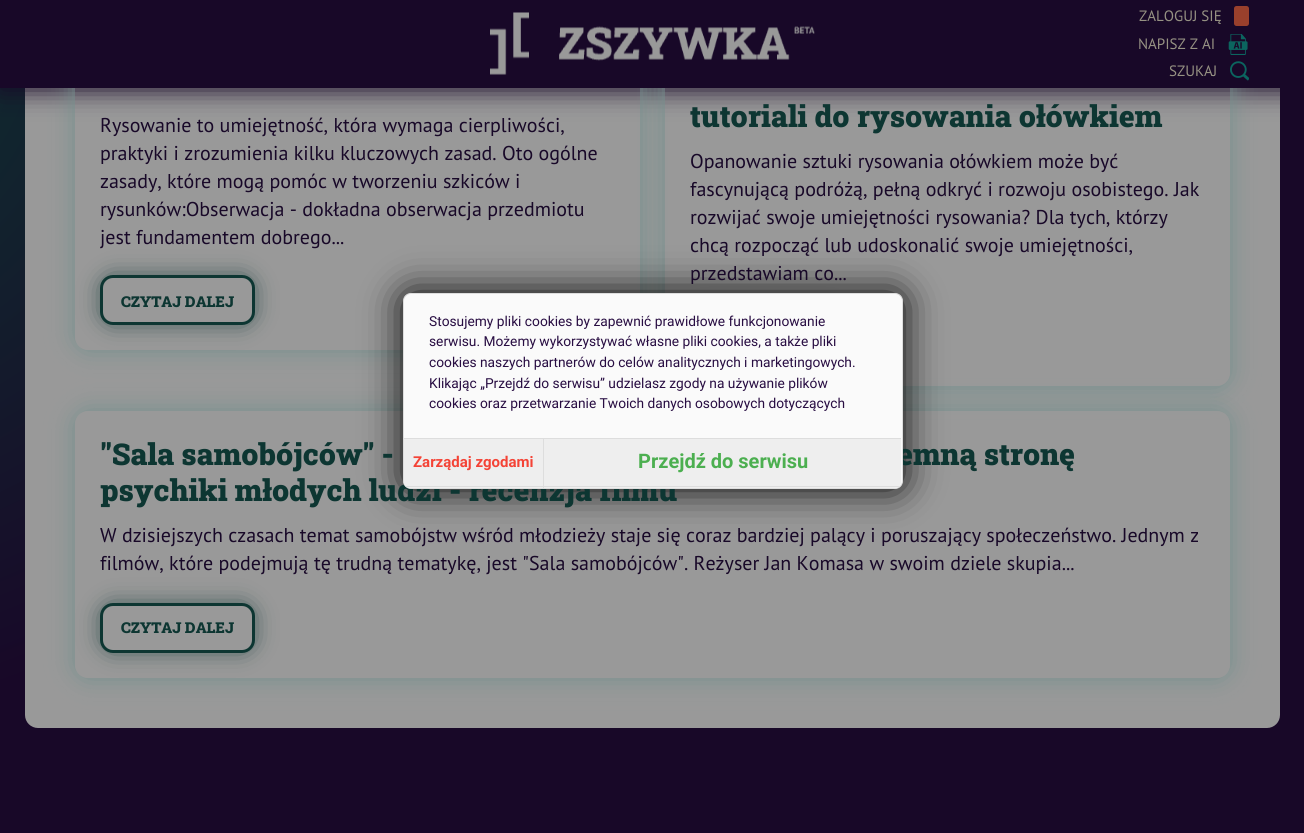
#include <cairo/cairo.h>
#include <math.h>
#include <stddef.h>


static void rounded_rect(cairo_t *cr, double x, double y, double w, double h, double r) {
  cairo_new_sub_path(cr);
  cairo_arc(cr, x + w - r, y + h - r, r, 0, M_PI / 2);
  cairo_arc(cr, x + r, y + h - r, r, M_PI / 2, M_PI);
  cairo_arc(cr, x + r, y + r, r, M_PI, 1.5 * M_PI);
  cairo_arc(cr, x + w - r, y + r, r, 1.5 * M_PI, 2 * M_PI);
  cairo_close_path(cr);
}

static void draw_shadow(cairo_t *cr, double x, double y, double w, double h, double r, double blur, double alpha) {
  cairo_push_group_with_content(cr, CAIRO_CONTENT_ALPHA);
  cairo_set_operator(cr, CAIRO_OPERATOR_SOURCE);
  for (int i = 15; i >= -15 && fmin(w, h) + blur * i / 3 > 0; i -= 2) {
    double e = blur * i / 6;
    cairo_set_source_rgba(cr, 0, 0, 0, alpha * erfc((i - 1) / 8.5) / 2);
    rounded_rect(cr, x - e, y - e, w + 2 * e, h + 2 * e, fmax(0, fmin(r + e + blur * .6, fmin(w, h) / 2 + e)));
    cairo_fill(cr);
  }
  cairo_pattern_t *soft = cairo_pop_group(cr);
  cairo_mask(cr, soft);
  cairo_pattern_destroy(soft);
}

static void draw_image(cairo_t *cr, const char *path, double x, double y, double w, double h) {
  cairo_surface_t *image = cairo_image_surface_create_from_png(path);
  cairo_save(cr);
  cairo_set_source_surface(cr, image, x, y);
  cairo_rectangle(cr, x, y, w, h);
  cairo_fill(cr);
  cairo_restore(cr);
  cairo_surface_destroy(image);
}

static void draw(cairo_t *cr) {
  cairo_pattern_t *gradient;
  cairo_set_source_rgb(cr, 1, 1, 1);
  cairo_paint(cr);
  gradient = cairo_pattern_create_radial(-235, 0, 0, -235, 0, 2019);
  cairo_pattern_add_color_stop_rgba(gradient, 0, 13 / 255.0, 54 / 255.0, 50 / 255.0, 1);
  cairo_pattern_add_color_stop_rgba(gradient, 0.36, 24 / 255.0, 8 / 255.0, 40 / 255.0, 1);
  cairo_set_source(cr, gradient);
  cairo_pattern_destroy(gradient);
  cairo_rectangle(cr, 0, 88, 1304, 745);
  cairo_fill(cr);
  cairo_set_source_rgb(cr, 153 / 255.0, 153 / 255.0, 153 / 255.0);
  rounded_rect(cr, 25, -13, 1255, 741, 13);
  cairo_fill(cr);
  cairo_set_source_rgb(cr, 24 / 255.0, 8 / 255.0, 40 / 255.0);
  draw_shadow(cr, 0, 3, 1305, 87, 0, 12.5, 1);
  cairo_save(cr);
  cairo_set_fill_rule(cr, CAIRO_FILL_RULE_EVEN_ODD);
  cairo_new_path(cr);
  cairo_move_to(cr, 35, 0);
  cairo_line_to(cr, 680, 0);
  cairo_line_to(cr, 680, 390);
  cairo_line_to(cr, 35, 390);
  cairo_close_path(cr);
  cairo_move_to(cr, 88, 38);
  cairo_line_to(cr, 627, 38);
  cairo_curve_to(cr, 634, 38, 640, 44, 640, 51);
  cairo_line_to(cr, 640, 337);
  cairo_curve_to(cr, 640, 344, 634, 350, 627, 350);
  cairo_line_to(cr, 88, 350);
  cairo_curve_to(cr, 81, 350, 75, 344, 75, 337);
  cairo_line_to(cr, 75, 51);
  cairo_curve_to(cr, 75, 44, 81, 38, 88, 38);
  cairo_close_path(cr);
  cairo_clip(cr);
  cairo_set_source_rgb(cr, 118 / 255.0, 144 / 255.0, 142 / 255.0);
  draw_shadow(cr, 74, 36, 567, 315, 14, 12.5, 1);
  cairo_restore(cr);
  cairo_save(cr);
  cairo_set_fill_rule(cr, CAIRO_FILL_RULE_EVEN_ODD);
  cairo_new_path(cr);
  cairo_move_to(cr, 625, 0);
  cairo_line_to(cr, 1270, 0);
  cairo_line_to(cr, 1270, 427);
  cairo_line_to(cr, 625, 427);
  cairo_close_path(cr);
  cairo_move_to(cr, 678, 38);
  cairo_line_to(cr, 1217, 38);
  cairo_curve_to(cr, 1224, 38, 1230, 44, 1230, 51);
  cairo_line_to(cr, 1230, 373);
  cairo_curve_to(cr, 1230, 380, 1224, 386, 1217, 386);
  cairo_line_to(cr, 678, 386);
  cairo_curve_to(cr, 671, 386, 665, 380, 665, 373);
  cairo_line_to(cr, 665, 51);
  cairo_curve_to(cr, 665, 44, 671, 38, 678, 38);
  cairo_close_path(cr);
  cairo_clip(cr);
  cairo_set_source_rgb(cr, 118 / 255.0, 144 / 255.0, 142 / 255.0);
  draw_shadow(cr, 664, 36, 567, 352, 14, 12.5, 1);
  cairo_restore(cr);
  cairo_set_source_rgb(cr, 24 / 255.0, 8 / 255.0, 40 / 255.0);
  cairo_rectangle(cr, 0, 0, 1304, 88);
  cairo_fill(cr);
  draw_image(cr, "images/1.png", 490, 12, 325, 63);
  cairo_set_source_rgb(cr, 153 / 255.0, 64 / 255.0, 44 / 255.0);
  rounded_rect(cr, 1234, 6, 15, 20, 2.5);
  cairo_fill(cr);
  draw_image(cr, "images/2.png", 1228, 34, 20, 21);
  draw_image(cr, "images/3.png", 1230, 61, 19, 20);
  cairo_set_source_rgb(cr, 13 / 255.0, 54 / 255.0, 50 / 255.0);
  draw_shadow(cr, 106, 281, 143, 38, 6, 12.5, 1);
  cairo_set_source_rgb(cr, 153 / 255.0, 153 / 255.0, 153 / 255.0);
  rounded_rect(cr, 101.5, 276.5, 152, 47, 11.5);
  cairo_fill_preserve(cr);
  cairo_set_source_rgb(cr, 13 / 255.0, 54 / 255.0, 50 / 255.0);
  cairo_set_line_width(cr, 3);
  cairo_stroke(cr);
  cairo_set_source_rgb(cr, 13 / 255.0, 54 / 255.0, 50 / 255.0);
  draw_shadow(cr, 696, 318, 143, 37, 6, 12.5, 1);
  cairo_save(cr);
  cairo_set_fill_rule(cr, CAIRO_FILL_RULE_EVEN_ODD);
  cairo_new_path(cr);
  cairo_move_to(cr, 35, 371);
  cairo_line_to(cr, 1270, 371);
  cairo_line_to(cr, 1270, 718);
  cairo_line_to(cr, 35, 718);
  cairo_close_path(cr);
  cairo_move_to(cr, 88, 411);
  cairo_line_to(cr, 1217, 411);
  cairo_curve_to(cr, 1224, 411, 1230, 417, 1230, 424);
  cairo_line_to(cr, 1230, 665);
  cairo_curve_to(cr, 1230, 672, 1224, 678, 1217, 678);
  cairo_line_to(cr, 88, 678);
  cairo_curve_to(cr, 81, 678, 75, 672, 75, 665);
  cairo_line_to(cr, 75, 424);
  cairo_curve_to(cr, 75, 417, 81, 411, 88, 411);
  cairo_close_path(cr);
  cairo_clip(cr);
  cairo_set_source_rgb(cr, 118 / 255.0, 144 / 255.0, 142 / 255.0);
  draw_shadow(cr, 74, 410, 1157, 269, 14, 12.5, 1);
  cairo_restore(cr);
  draw_shadow(cr, 106, 609, 143, 37, 6, 12.5, 1);
  cairo_set_source_rgb(cr, 153 / 255.0, 153 / 255.0, 153 / 255.0);
  rounded_rect(cr, 101.5, 604.5, 152, 47, 11.5);
  cairo_fill_preserve(cr);
  cairo_set_source_rgb(cr, 13 / 255.0, 54 / 255.0, 50 / 255.0);
  cairo_stroke(cr);
  cairo_set_source_rgb(cr, 0, 0, 0);
  draw_shadow(cr, 403, 293, 500, 196, 8, 19, 1);
  cairo_select_font_face(cr, "PT Sans", CAIRO_FONT_SLANT_NORMAL, CAIRO_FONT_WEIGHT_NORMAL);
  cairo_set_font_size(cr, 15);
  cairo_set_source_rgb(cr, 150 / 255.0, 146 / 255.0, 131 / 255.0);
  cairo_move_to(cr, 1139, 21);
  cairo_show_text(cr, "ZALOGUJ SIĘ");
  cairo_move_to(cr, 1138, 49);
  cairo_show_text(cr, "NAPISZ Z AI");
  cairo_move_to(cr, 1169, 76);
  cairo_show_text(cr, "SZUKAJ");
  cairo_set_font_size(cr, 20);
  cairo_set_source_rgb(cr, 24 / 255.0, 8 / 255.0, 40 / 255.0);
  cairo_move_to(cr, 100, 132);
  cairo_show_text(cr, "Rysowanie to umiejętność, która wymaga cierpliwości,");
  cairo_move_to(cr, 100, 160);
  cairo_show_text(cr, "praktyki i zrozumienia kilku kluczowych zasad. Oto ogólne");
  cairo_move_to(cr, 100, 188);
  cairo_show_text(cr, "zasady, które mogą pomóc w tworzeniu szkiców i");
  cairo_move_to(cr, 100, 216);
  cairo_show_text(cr, "rysunków:Obserwacja - dokładna obserwacja przedmiotu");
  cairo_move_to(cr, 100, 244);
  cairo_show_text(cr, "jest fundamentem dobrego...");
  cairo_select_font_face(cr, "Roboto Slab Black", CAIRO_FONT_SLANT_NORMAL, CAIRO_FONT_WEIGHT_NORMAL);
  cairo_set_font_size(cr, 15);
  cairo_set_source_rgb(cr, 13 / 255.0, 54 / 255.0, 50 / 255.0);
  cairo_move_to(cr, 121, 307);
  cairo_show_text(cr, "CZYTAJ DALEJ");
  cairo_set_font_size(cr, 30);
  cairo_move_to(cr, 690, 127);
  cairo_show_text(cr, "tutoriali do rysowania ołówkiem");
  cairo_select_font_face(cr, "PT Sans", CAIRO_FONT_SLANT_NORMAL, CAIRO_FONT_WEIGHT_NORMAL);
  cairo_set_font_size(cr, 20);
  cairo_set_source_rgb(cr, 24 / 255.0, 8 / 255.0, 40 / 255.0);
  cairo_move_to(cr, 690, 168);
  cairo_show_text(cr, "Opanowanie sztuki rysowania ołówkiem może być");
  cairo_move_to(cr, 690, 196);
  cairo_show_text(cr, "fascynującą podróżą, pełną odkryć i rozwoju osobistego. Jak");
  cairo_move_to(cr, 690, 224);
  cairo_show_text(cr, "rozwijać swoje umiejętności rysowania? Dla tych, którzy");
  cairo_move_to(cr, 690, 252);
  cairo_show_text(cr, "chcą rozpocząć lub udoskonalić swoje umiejętności,");
  cairo_move_to(cr, 690, 280);
  cairo_show_text(cr, "przedstawiam co...");
  cairo_select_font_face(cr, "Roboto Slab Black", CAIRO_FONT_SLANT_NORMAL, CAIRO_FONT_WEIGHT_NORMAL);
  cairo_set_font_size(cr, 30);
  cairo_set_source_rgb(cr, 13 / 255.0, 54 / 255.0, 50 / 255.0);
  cairo_move_to(cr, 100, 465);
  cairo_show_text(cr, "\"Sala samobójców\" -");
  cairo_move_to(cr, 897, 465);
  cairo_show_text(cr, "emną stronę");
  cairo_move_to(cr, 100, 501);
  cairo_show_text(cr, "psychiki młodych ludzi - recenzja filmu");
  cairo_select_font_face(cr, "PT Sans", CAIRO_FONT_SLANT_NORMAL, CAIRO_FONT_WEIGHT_NORMAL);
  cairo_set_font_size(cr, 20);
  cairo_set_source_rgb(cr, 24 / 255.0, 8 / 255.0, 40 / 255.0);
  cairo_move_to(cr, 100, 542);
  cairo_show_text(cr, "W dzisiejszych czasach temat samobójstw wśród młodzieży staje się coraz bardziej palący i poruszający społeczeństwo. Jednym z");
  cairo_move_to(cr, 100, 570);
  cairo_show_text(cr, "filmów, które podejmują tę trudną tematykę, jest \"Sala samobójców\". Reżyser Jan Komasa w swoim dziele skupia...");
  cairo_select_font_face(cr, "Roboto Slab Black", CAIRO_FONT_SLANT_NORMAL, CAIRO_FONT_WEIGHT_NORMAL);
  cairo_set_font_size(cr, 15);
  cairo_set_source_rgb(cr, 13 / 255.0, 54 / 255.0, 50 / 255.0);
  cairo_move_to(cr, 121, 633);
  cairo_show_text(cr, "CZYTAJ DALEJ");
  cairo_set_source_rgb(cr, 250 / 255.0, 250 / 255.0, 250 / 255.0);
  rounded_rect(cr, 403.5, 293.5, 499, 195, 7.5);
  cairo_fill_preserve(cr);
  cairo_set_source_rgb(cr, 221 / 255.0, 221 / 255.0, 221 / 255.0);
  cairo_set_line_width(cr, 1);
  cairo_stroke(cr);
  cairo_select_font_face(cr, "Roboto", CAIRO_FONT_SLANT_NORMAL, CAIRO_FONT_WEIGHT_NORMAL);
  cairo_set_font_size(cr, 13.75);
  cairo_set_source_rgb(cr, 40 / 255.0, 13 / 255.0, 66 / 255.0);
  cairo_move_to(cr, 429, 326);
  cairo_show_text(cr, "Stosujemy pliki cookies by zapewnić prawidłowe funkcjonowanie");
  cairo_move_to(cr, 429, 346);
  cairo_show_text(cr, "serwisu. Możemy wykorzystywać własne pliki cookies, a także pliki");
  cairo_move_to(cr, 429, 367);
  cairo_show_text(cr, "cookies naszych partnerów do celów analitycznych i marketingowych.");
  cairo_move_to(cr, 429, 388);
  cairo_show_text(cr, "Klikając „Przejdź do serwisu” udzielasz zgody na używanie plików");
  cairo_move_to(cr, 429, 408);
  cairo_show_text(cr, "cookies oraz przetwarzanie Twoich danych osobowych dotyczących");
  cairo_set_source_rgb(cr, 238 / 255.0, 238 / 255.0, 238 / 255.0);
  cairo_new_path(cr);
  cairo_move_to(cr, 404, 438);
  cairo_line_to(cr, 544, 438);
  cairo_line_to(cr, 544, 488);
  cairo_line_to(cr, 410, 488);
  cairo_curve_to(cr, 406.5, 488, 404, 485.5, 404, 482);
  cairo_close_path(cr);
  cairo_fill(cr);
  cairo_set_source_rgb(cr, 221 / 255.0, 221 / 255.0, 221 / 255.0);
  cairo_rectangle(cr, 404, 438, 140, 1);
  cairo_fill(cr);
  cairo_rectangle(cr, 543, 438, 1, 50);
  cairo_fill(cr);
  cairo_save(cr);
  rounded_rect(cr, 404, 294, 497, 194, 6);
  cairo_clip(cr);
  cairo_rectangle(cr, 404, 486, 140, 1);
  cairo_fill(cr);
  cairo_restore(cr);
  cairo_select_font_face(cr, "Roboto", CAIRO_FONT_SLANT_NORMAL, CAIRO_FONT_WEIGHT_BOLD);
  cairo_set_font_size(cr, 15);
  cairo_set_source_rgb(cr, 244 / 255.0, 67 / 255.0, 54 / 255.0);
  cairo_move_to(cr, 413, 467);
  cairo_show_text(cr, "Zarządaj zgodami");
  cairo_set_source_rgb(cr, 238 / 255.0, 238 / 255.0, 238 / 255.0);
  cairo_new_path(cr);
  cairo_move_to(cr, 544, 438);
  cairo_line_to(cr, 901, 438);
  cairo_line_to(cr, 901, 482);
  cairo_curve_to(cr, 901, 485.5, 898.5, 488, 895, 488);
  cairo_line_to(cr, 544, 488);
  cairo_close_path(cr);
  cairo_fill(cr);
  cairo_set_source_rgb(cr, 221 / 255.0, 221 / 255.0, 221 / 255.0);
  cairo_rectangle(cr, 544, 438, 357, 1);
  cairo_fill(cr);
  cairo_save(cr);
  rounded_rect(cr, 404, 294, 497, 194, 6);
  cairo_clip(cr);
  cairo_rectangle(cr, 544, 486, 357, 1);
  cairo_fill(cr);
  cairo_restore(cr);
  cairo_set_font_size(cr, 20);
  cairo_set_source_rgb(cr, 76 / 255.0, 175 / 255.0, 80 / 255.0);
  cairo_move_to(cr, 638, 468);
  cairo_show_text(cr, "Przejdź do serwisu");
}

int main(void) {
  cairo_surface_t *surface = cairo_image_surface_create(CAIRO_FORMAT_RGB24, 1304, 833);
  cairo_t *cr = cairo_create(surface);
  cairo_font_options_t *options = cairo_font_options_create();
  cairo_font_options_set_hint_metrics(options, CAIRO_HINT_METRICS_OFF);
  cairo_font_options_set_hint_style(options, CAIRO_HINT_STYLE_NONE);
  cairo_set_font_options(cr, options);
  cairo_set_miter_limit(cr, 4);
  draw(cr);
  cairo_surface_write_to_png(surface, "out.png");
  cairo_font_options_destroy(options);
  cairo_destroy(cr);
  cairo_surface_destroy(surface);
  return 0;
}
